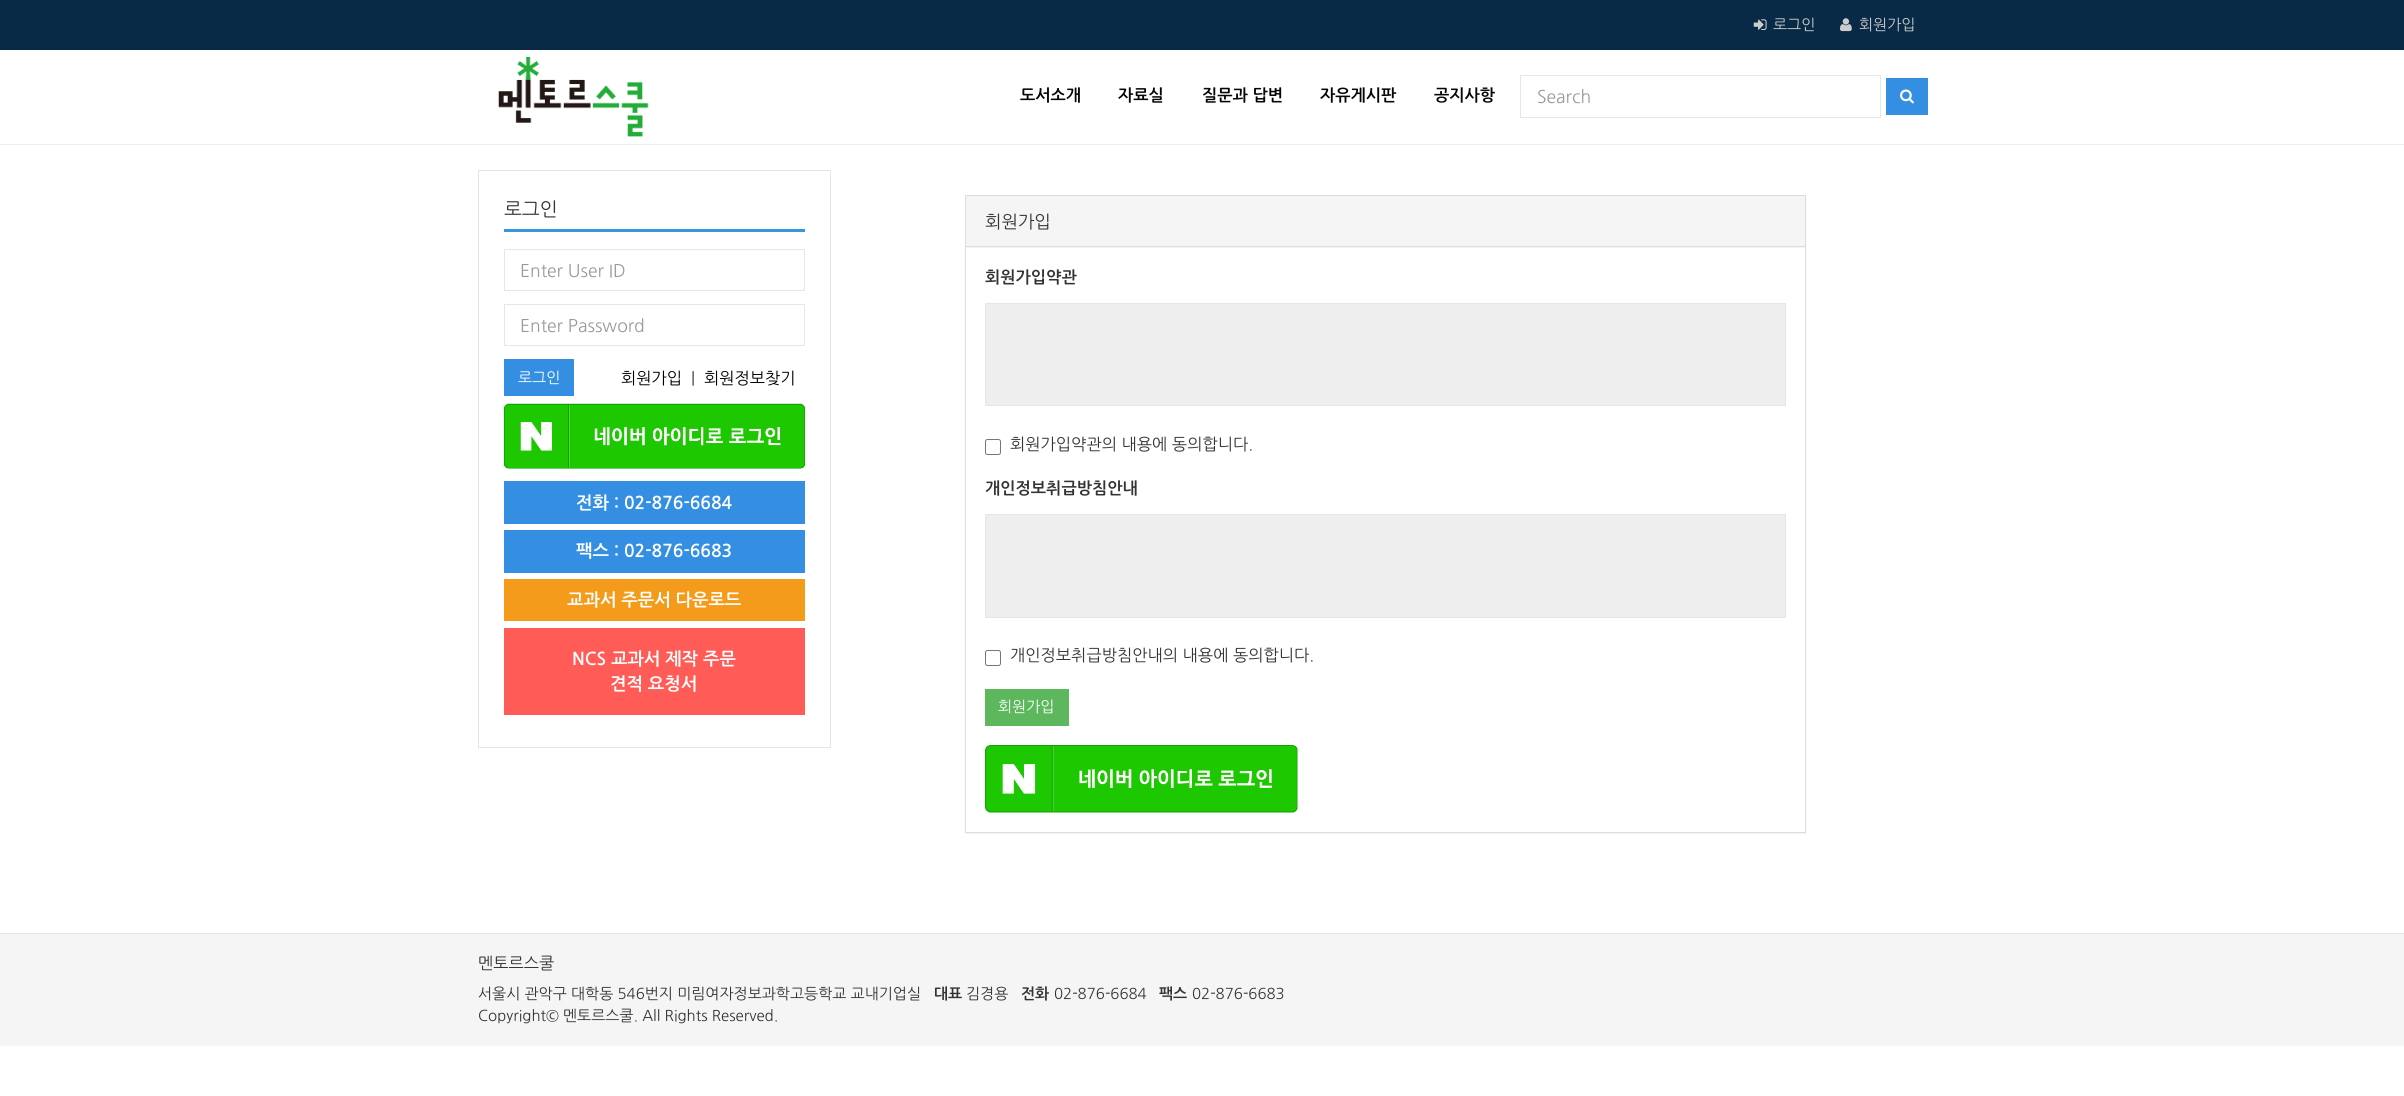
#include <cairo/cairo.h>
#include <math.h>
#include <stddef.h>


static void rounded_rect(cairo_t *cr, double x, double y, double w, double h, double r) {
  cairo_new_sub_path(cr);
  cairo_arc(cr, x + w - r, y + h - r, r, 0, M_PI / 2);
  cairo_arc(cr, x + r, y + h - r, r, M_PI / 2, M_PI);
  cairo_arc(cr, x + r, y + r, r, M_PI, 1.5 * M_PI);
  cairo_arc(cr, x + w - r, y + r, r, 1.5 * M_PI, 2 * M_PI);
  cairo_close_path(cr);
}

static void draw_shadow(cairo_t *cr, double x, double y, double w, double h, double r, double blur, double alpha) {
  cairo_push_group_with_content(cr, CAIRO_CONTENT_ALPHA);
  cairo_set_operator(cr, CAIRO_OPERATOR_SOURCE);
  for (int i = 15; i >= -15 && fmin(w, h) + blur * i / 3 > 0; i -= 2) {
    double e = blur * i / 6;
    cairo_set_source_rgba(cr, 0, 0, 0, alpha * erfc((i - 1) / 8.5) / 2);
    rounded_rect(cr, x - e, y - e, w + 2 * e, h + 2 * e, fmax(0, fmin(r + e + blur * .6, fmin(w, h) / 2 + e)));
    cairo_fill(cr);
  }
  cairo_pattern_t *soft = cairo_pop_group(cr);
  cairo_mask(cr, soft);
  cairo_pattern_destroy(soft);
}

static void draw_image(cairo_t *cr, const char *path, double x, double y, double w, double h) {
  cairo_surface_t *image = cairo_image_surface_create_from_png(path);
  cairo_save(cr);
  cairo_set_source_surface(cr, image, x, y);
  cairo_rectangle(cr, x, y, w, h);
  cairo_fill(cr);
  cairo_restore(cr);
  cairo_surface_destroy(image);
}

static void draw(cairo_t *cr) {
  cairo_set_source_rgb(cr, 1, 1, 1);
  cairo_paint(cr);
  cairo_set_source_rgb(cr, 8 / 255.0, 42 / 255.0, 71 / 255.0);
  cairo_rectangle(cr, 0, 0, 2404, 50);
  cairo_fill(cr);
  draw_image(cr, "images/1.png", 1753, 19, 14, 11);
  draw_image(cr, "images/2.png", 1840, 18, 12, 14);
  cairo_set_source_rgb(cr, 238 / 255.0, 238 / 255.0, 238 / 255.0);
  cairo_rectangle(cr, 0, 144, 2404, 1);
  cairo_fill(cr);
  draw_image(cr, "images/3.png", 498, 57, 151, 80);
  cairo_rectangle(cr, 1520.5, 75.5, 360, 42);
  cairo_set_source_rgb(cr, 229 / 255.0, 230 / 255.0, 231 / 255.0);
  cairo_set_line_width(cr, 1);
  cairo_stroke(cr);
  cairo_set_source_rgb(cr, 52 / 255.0, 143 / 255.0, 226 / 255.0);
  cairo_rectangle(cr, 1886, 78, 42, 37);
  cairo_fill(cr);
  draw_image(cr, "images/4.png", 1900, 89, 14, 15);
  cairo_rectangle(cr, 478.5, 170.5, 352, 577);
  cairo_set_source_rgb(cr, 229 / 255.0, 229 / 255.0, 229 / 255.0);
  cairo_stroke(cr);
  cairo_new_path(cr);
  cairo_move_to(cr, 504, 229.5);
  cairo_line_to(cr, 805, 229.5);
  cairo_set_source_rgb(cr, 204 / 255.0, 204 / 255.0, 204 / 255.0);
  cairo_set_line_width(cr, 1.2);
  cairo_set_dash(cr, (double[]){1.25, 1.25}, 2, 0);
  cairo_stroke(cr);
  cairo_set_source_rgb(cr, 52 / 255.0, 152 / 255.0, 219 / 255.0);
  cairo_rectangle(cr, 504, 229, 301, 3);
  cairo_fill(cr);
  cairo_rectangle(cr, 504.5, 249.5, 300, 41);
  cairo_set_source_rgb(cr, 229 / 255.0, 230 / 255.0, 231 / 255.0);
  cairo_set_line_width(cr, 1);
  cairo_set_dash(cr, NULL, 0, 0);
  cairo_stroke(cr);
  cairo_rectangle(cr, 504.5, 304.5, 300, 41);
  cairo_stroke(cr);
  cairo_set_source_rgb(cr, 52 / 255.0, 143 / 255.0, 226 / 255.0);
  cairo_rectangle(cr, 504, 359, 70, 37);
  cairo_fill(cr);
  draw_image(cr, "images/5.png", 503, 403, 302, 66);
  cairo_rectangle(cr, 504, 481, 301, 43);
  cairo_fill(cr);
  cairo_rectangle(cr, 504, 530, 301, 43);
  cairo_fill(cr);
  cairo_set_source_rgb(cr, 244 / 255.0, 155 / 255.0, 27 / 255.0);
  cairo_rectangle(cr, 504, 579, 301, 42);
  cairo_fill(cr);
  cairo_set_source_rgb(cr, 1, 92 / 255.0, 87 / 255.0);
  cairo_rectangle(cr, 504, 628, 301, 87);
  cairo_fill(cr);
  cairo_set_source_rgb(cr, 0, 0, 0);
  draw_shadow(cr, 965, 196, 841, 638, 0, 0.5, 0.05);
  cairo_set_source_rgb(cr, 1, 1, 1);
  cairo_rectangle(cr, 966, 248, 839, 584);
  cairo_fill(cr);
  cairo_rectangle(cr, 965.5, 195.5, 840, 637);
  cairo_set_source_rgb(cr, 221 / 255.0, 221 / 255.0, 221 / 255.0);
  cairo_stroke(cr);
  cairo_set_source_rgb(cr, 245 / 255.0, 245 / 255.0, 245 / 255.0);
  cairo_rectangle(cr, 966, 197, 839, 51);
  cairo_fill(cr);
  cairo_set_source_rgb(cr, 221 / 255.0, 221 / 255.0, 221 / 255.0);
  cairo_rectangle(cr, 966, 246, 839, 1);
  cairo_fill(cr);
  cairo_set_source_rgb(cr, 238 / 255.0, 238 / 255.0, 238 / 255.0);
  cairo_rectangle(cr, 985.5, 303.5, 800, 102);
  cairo_fill_preserve(cr);
  cairo_set_source_rgb(cr, 229 / 255.0, 230 / 255.0, 231 / 255.0);
  cairo_stroke(cr);
  rounded_rect(cr, 985.5, 439.5, 15, 15, 2);
  cairo_set_source_rgb(cr, 118 / 255.0, 118 / 255.0, 118 / 255.0);
  cairo_stroke(cr);
  cairo_set_source_rgb(cr, 238 / 255.0, 238 / 255.0, 238 / 255.0);
  cairo_rectangle(cr, 985.5, 514.5, 800, 103);
  cairo_fill_preserve(cr);
  cairo_set_source_rgb(cr, 229 / 255.0, 230 / 255.0, 231 / 255.0);
  cairo_stroke(cr);
  rounded_rect(cr, 985.5, 650.5, 15, 15, 2);
  cairo_set_source_rgb(cr, 118 / 255.0, 118 / 255.0, 118 / 255.0);
  cairo_stroke(cr);
  cairo_set_source_rgb(cr, 93 / 255.0, 183 / 255.0, 93 / 255.0);
  cairo_rectangle(cr, 985, 689, 84, 37);
  cairo_fill(cr);
  draw_image(cr, "images/6.png", 985, 745, 313, 68);
  cairo_set_source_rgb(cr, 245 / 255.0, 245 / 255.0, 245 / 255.0);
  cairo_rectangle(cr, 0, 934, 2404, 112);
  cairo_fill(cr);
  cairo_set_source_rgb(cr, 229 / 255.0, 229 / 255.0, 229 / 255.0);
  cairo_rectangle(cr, 0, 933, 2404, 1);
  cairo_fill(cr);
  cairo_select_font_face(cr, "NanumGothic", CAIRO_FONT_SLANT_NORMAL, CAIRO_FONT_WEIGHT_NORMAL);
  cairo_set_font_size(cr, 15);
  cairo_set_source_rgb(cr, 204 / 255.0, 204 / 255.0, 204 / 255.0);
  cairo_move_to(cr, 1773, 30);
  cairo_show_text(cr, "로그인");
  cairo_move_to(cr, 1859, 30);
  cairo_show_text(cr, "회원가입");
  cairo_select_font_face(cr, "NanumGothic", CAIRO_FONT_SLANT_NORMAL, CAIRO_FONT_WEIGHT_BOLD);
  cairo_set_font_size(cr, 16.25);
  cairo_set_source_rgb(cr, 6 / 255.0, 6 / 255.0, 6 / 255.0);
  cairo_move_to(cr, 1020, 101);
  cairo_show_text(cr, "도서소개");
  cairo_move_to(cr, 1118, 101);
  cairo_show_text(cr, "자료실");
  cairo_move_to(cr, 1202, 101);
  cairo_show_text(cr, "질문과 답변");
  cairo_move_to(cr, 1320, 101);
  cairo_show_text(cr, "자유게시판");
  cairo_move_to(cr, 1434, 101);
  cairo_show_text(cr, "공지사항");
  cairo_select_font_face(cr, "NanumGothic", CAIRO_FONT_SLANT_NORMAL, CAIRO_FONT_WEIGHT_NORMAL);
  cairo_set_font_size(cr, 17.5);
  cairo_set_source_rgb(cr, 153 / 255.0, 153 / 255.0, 153 / 255.0);
  cairo_move_to(cr, 1537, 103);
  cairo_show_text(cr, "Search");
  cairo_set_font_size(cr, 19);
  cairo_set_source_rgb(cr, 51 / 255.0, 51 / 255.0, 51 / 255.0);
  cairo_move_to(cr, 504, 216);
  cairo_show_text(cr, "로그인");
  cairo_set_font_size(cr, 17.5);
  cairo_set_source_rgb(cr, 153 / 255.0, 153 / 255.0, 153 / 255.0);
  cairo_move_to(cr, 520, 277);
  cairo_show_text(cr, "Enter User ID");
  cairo_move_to(cr, 520, 332);
  cairo_show_text(cr, "Enter Password");
  cairo_set_font_size(cr, 15);
  cairo_set_source_rgb(cr, 1, 1, 1);
  cairo_move_to(cr, 518, 383);
  cairo_show_text(cr, "로그인");
  cairo_set_font_size(cr, 16.25);
  cairo_set_source_rgb(cr, 0, 0, 0);
  cairo_move_to(cr, 621, 384);
  cairo_show_text(cr, "회원가입");
  cairo_set_source_rgb(cr, 51 / 255.0, 51 / 255.0, 51 / 255.0);
  cairo_move_to(cr, 691, 384);
  cairo_show_text(cr, "|");
  cairo_set_source_rgb(cr, 0, 0, 0);
  cairo_move_to(cr, 704, 384);
  cairo_show_text(cr, "회원정보찾기");
  cairo_select_font_face(cr, "NanumGothic", CAIRO_FONT_SLANT_NORMAL, CAIRO_FONT_WEIGHT_BOLD);
  cairo_set_font_size(cr, 17.5);
  cairo_set_source_rgb(cr, 1, 1, 1);
  cairo_move_to(cr, 576, 509);
  cairo_show_text(cr, "전화 : 02-876-6684");
  cairo_move_to(cr, 576, 557);
  cairo_show_text(cr, "팩스 : 02-876-6683");
  cairo_move_to(cr, 567, 606);
  cairo_show_text(cr, "교과서 주문서 다운로드");
  cairo_move_to(cr, 572, 665);
  cairo_show_text(cr, "NCS 교과서 제작 주문");
  cairo_move_to(cr, 610, 690);
  cairo_show_text(cr, "견적 요청서");
  cairo_select_font_face(cr, "NanumGothic", CAIRO_FONT_SLANT_NORMAL, CAIRO_FONT_WEIGHT_NORMAL);
  cairo_set_source_rgb(cr, 51 / 255.0, 51 / 255.0, 51 / 255.0);
  cairo_move_to(cr, 985, 228);
  cairo_show_text(cr, "회원가입");
  cairo_select_font_face(cr, "NanumGothic", CAIRO_FONT_SLANT_NORMAL, CAIRO_FONT_WEIGHT_BOLD);
  cairo_set_font_size(cr, 16.25);
  cairo_move_to(cr, 985, 283);
  cairo_show_text(cr, "회원가입약관");
  cairo_select_font_face(cr, "NanumGothic", CAIRO_FONT_SLANT_NORMAL, CAIRO_FONT_WEIGHT_NORMAL);
  cairo_move_to(cr, 1010, 450);
  cairo_show_text(cr, "회원가입약관의 내용에 동의합니다.");
  cairo_select_font_face(cr, "NanumGothic", CAIRO_FONT_SLANT_NORMAL, CAIRO_FONT_WEIGHT_BOLD);
  cairo_move_to(cr, 985, 494);
  cairo_show_text(cr, "개인정보취급방침안내");
  cairo_select_font_face(cr, "NanumGothic", CAIRO_FONT_SLANT_NORMAL, CAIRO_FONT_WEIGHT_NORMAL);
  cairo_move_to(cr, 1010, 661);
  cairo_show_text(cr, "개인정보취급방침안내의 내용에 동의합니다.");
  cairo_set_font_size(cr, 15);
  cairo_set_source_rgb(cr, 1, 1, 1);
  cairo_move_to(cr, 998, 712);
  cairo_show_text(cr, "회원가입");
  cairo_set_font_size(cr, 16.25);
  cairo_set_source_rgb(cr, 51 / 255.0, 51 / 255.0, 51 / 255.0);
  cairo_move_to(cr, 478, 969);
  cairo_show_text(cr, "멘토르스쿨");
  cairo_set_font_size(cr, 15);
  cairo_move_to(cr, 478, 999);
  cairo_show_text(cr, "서울시 관악구 대학동 546번지 미림여자정보과학고등학교 교내기업실");
  cairo_select_font_face(cr, "NanumGothic", CAIRO_FONT_SLANT_NORMAL, CAIRO_FONT_WEIGHT_BOLD);
  cairo_move_to(cr, 934, 999);
  cairo_show_text(cr, "대표");
  cairo_select_font_face(cr, "NanumGothic", CAIRO_FONT_SLANT_NORMAL, CAIRO_FONT_WEIGHT_NORMAL);
  cairo_move_to(cr, 966, 999);
  cairo_show_text(cr, "김경용");
  cairo_select_font_face(cr, "NanumGothic", CAIRO_FONT_SLANT_NORMAL, CAIRO_FONT_WEIGHT_BOLD);
  cairo_move_to(cr, 1021, 999);
  cairo_show_text(cr, "전화");
  cairo_select_font_face(cr, "NanumGothic", CAIRO_FONT_SLANT_NORMAL, CAIRO_FONT_WEIGHT_NORMAL);
  cairo_move_to(cr, 1054, 999);
  cairo_show_text(cr, "02-876-6684");
  cairo_select_font_face(cr, "NanumGothic", CAIRO_FONT_SLANT_NORMAL, CAIRO_FONT_WEIGHT_BOLD);
  cairo_move_to(cr, 1159, 999);
  cairo_show_text(cr, "팩스");
  cairo_select_font_face(cr, "NanumGothic", CAIRO_FONT_SLANT_NORMAL, CAIRO_FONT_WEIGHT_NORMAL);
  cairo_move_to(cr, 1192, 999);
  cairo_show_text(cr, "02-876-6683");
  cairo_move_to(cr, 478, 1021);
  cairo_show_text(cr, "Copyright© 멘토르스쿨. All Rights Reserved.");
}

int main(void) {
  cairo_surface_t *surface = cairo_image_surface_create(CAIRO_FORMAT_RGB24, 2404, 1096);
  cairo_t *cr = cairo_create(surface);
  cairo_font_options_t *options = cairo_font_options_create();
  cairo_font_options_set_hint_metrics(options, CAIRO_HINT_METRICS_OFF);
  cairo_font_options_set_hint_style(options, CAIRO_HINT_STYLE_NONE);
  cairo_set_font_options(cr, options);
  cairo_set_miter_limit(cr, 4);
  draw(cr);
  cairo_surface_write_to_png(surface, "out.png");
  cairo_font_options_destroy(options);
  cairo_destroy(cr);
  cairo_surface_destroy(surface);
  return 0;
}
